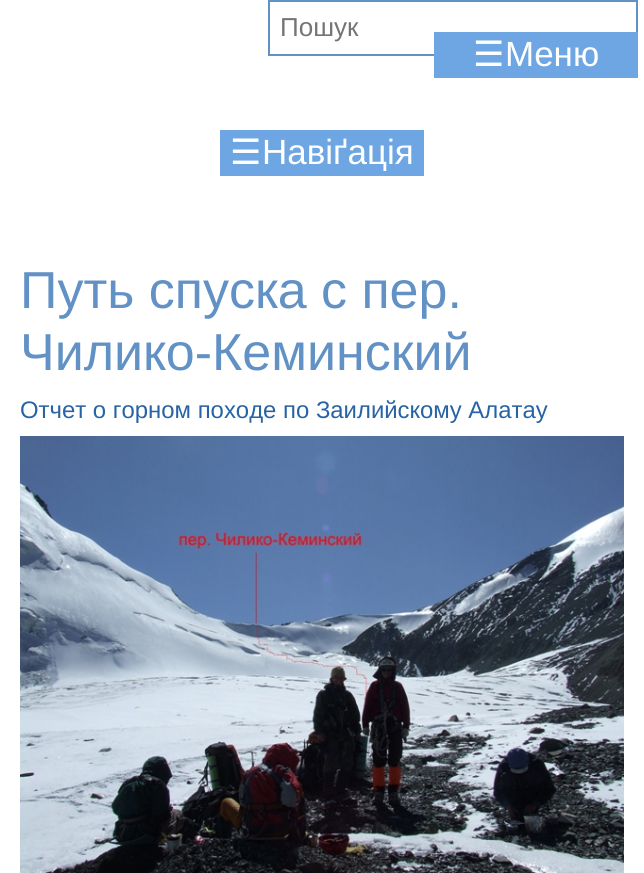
#include <cairo/cairo.h>
#include <math.h>
#include <stddef.h>


static void draw_image(cairo_t *cr, const char *path, double x, double y, double w, double h) {
  cairo_surface_t *image = cairo_image_surface_create_from_png(path);
  cairo_save(cr);
  cairo_set_source_surface(cr, image, x, y);
  cairo_rectangle(cr, x, y, w, h);
  cairo_fill(cr);
  cairo_restore(cr);
  cairo_surface_destroy(image);
}

static void draw(cairo_t *cr) {
  cairo_set_source_rgb(cr, 1, 1, 1);
  cairo_paint(cr);
  cairo_rectangle(cr, 269, 1, 368, 54);
  cairo_set_source_rgb(cr, 97 / 255.0, 145 / 255.0, 197 / 255.0);
  cairo_stroke(cr);
  cairo_set_source_rgb(cr, 109 / 255.0, 166 / 255.0, 226 / 255.0);
  cairo_rectangle(cr, 434, 32, 204, 46);
  cairo_fill(cr);
  cairo_rectangle(cr, 220, 130, 204, 46);
  cairo_fill(cr);
  draw_image(cr, "images/1.png", 20, 436, 604, 437);
  cairo_select_font_face(cr, "Liberation Sans", CAIRO_FONT_SLANT_NORMAL, CAIRO_FONT_WEIGHT_NORMAL);
  cairo_set_font_size(cr, 26);
  cairo_set_source_rgb(cr, 117 / 255.0, 117 / 255.0, 117 / 255.0);
  cairo_move_to(cr, 280, 36);
  cairo_show_text(cr, "Пошук");
  cairo_select_font_face(cr, "DejaVu Sans", CAIRO_FONT_SLANT_NORMAL, CAIRO_FONT_WEIGHT_NORMAL);
  cairo_set_font_size(cr, 35);
  cairo_set_source_rgb(cr, 1, 1, 1);
  cairo_move_to(cr, 473, 66);
  cairo_show_text(cr, "☰");
  cairo_select_font_face(cr, "Liberation Sans", CAIRO_FONT_SLANT_NORMAL, CAIRO_FONT_WEIGHT_NORMAL);
  cairo_move_to(cr, 505, 66);
  cairo_show_text(cr, "Меню");
  cairo_select_font_face(cr, "DejaVu Sans", CAIRO_FONT_SLANT_NORMAL, CAIRO_FONT_WEIGHT_NORMAL);
  cairo_move_to(cr, 230, 164);
  cairo_show_text(cr, "☰");
  cairo_select_font_face(cr, "Liberation Sans", CAIRO_FONT_SLANT_NORMAL, CAIRO_FONT_WEIGHT_NORMAL);
  cairo_move_to(cr, 262, 164);
  cairo_show_text(cr, "Навіґація");
  cairo_set_font_size(cr, 52);
  cairo_set_source_rgb(cr, 97 / 255.0, 145 / 255.0, 197 / 255.0);
  cairo_move_to(cr, 20, 308);
  cairo_show_text(cr, "Путь спуска с пер.");
  cairo_move_to(cr, 20, 370);
  cairo_show_text(cr, "Чилико-Кеминский");
  cairo_set_font_size(cr, 23.9);
  cairo_set_source_rgb(cr, 39 / 255.0, 99 / 255.0, 165 / 255.0);
  cairo_move_to(cr, 20, 418);
  cairo_show_text(cr, "Отчет о горном походе по Заилийскому Алатау");
}

int main(void) {
  cairo_surface_t *surface = cairo_image_surface_create(CAIRO_FORMAT_RGB24, 644, 873);
  cairo_t *cr = cairo_create(surface);
  cairo_font_options_t *options = cairo_font_options_create();
  cairo_font_options_set_hint_metrics(options, CAIRO_HINT_METRICS_OFF);
  cairo_font_options_set_hint_style(options, CAIRO_HINT_STYLE_NONE);
  cairo_set_font_options(cr, options);
  cairo_set_miter_limit(cr, 4);
  draw(cr);
  cairo_surface_write_to_png(surface, "out.png");
  cairo_font_options_destroy(options);
  cairo_destroy(cr);
  cairo_surface_destroy(surface);
  return 0;
}
